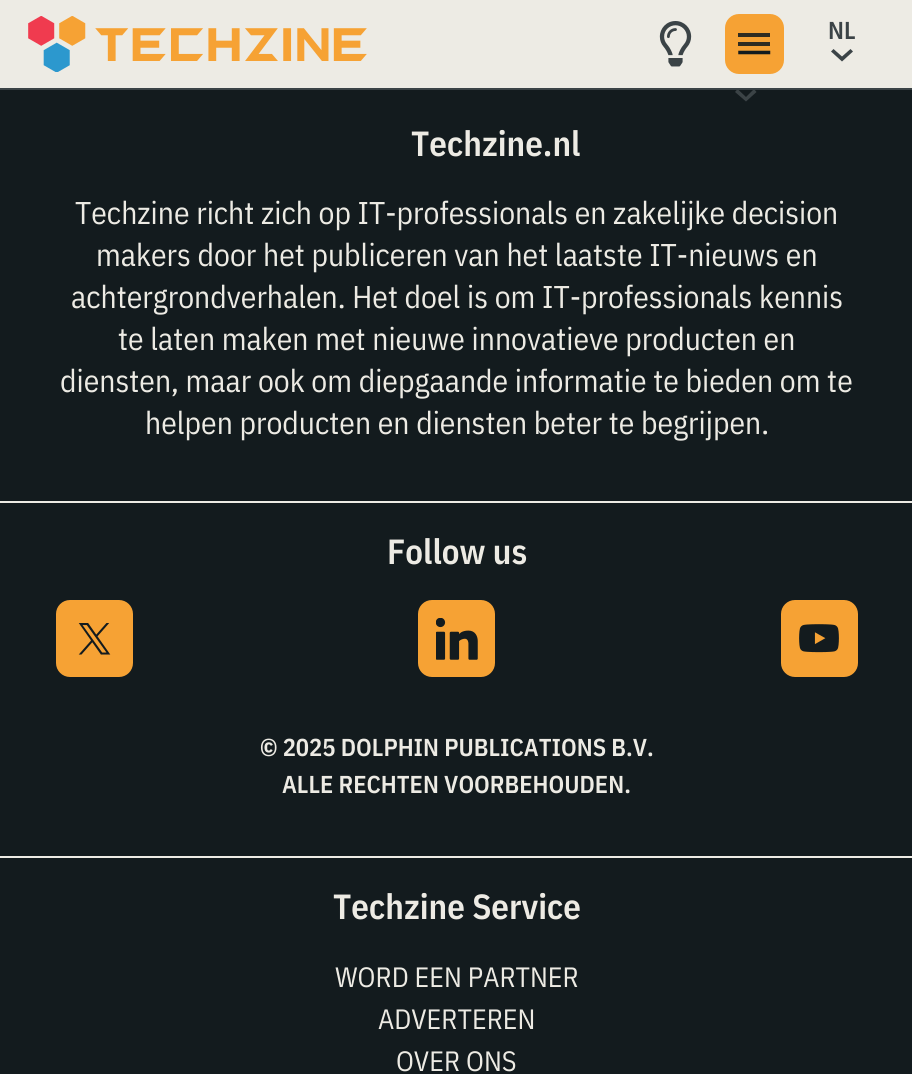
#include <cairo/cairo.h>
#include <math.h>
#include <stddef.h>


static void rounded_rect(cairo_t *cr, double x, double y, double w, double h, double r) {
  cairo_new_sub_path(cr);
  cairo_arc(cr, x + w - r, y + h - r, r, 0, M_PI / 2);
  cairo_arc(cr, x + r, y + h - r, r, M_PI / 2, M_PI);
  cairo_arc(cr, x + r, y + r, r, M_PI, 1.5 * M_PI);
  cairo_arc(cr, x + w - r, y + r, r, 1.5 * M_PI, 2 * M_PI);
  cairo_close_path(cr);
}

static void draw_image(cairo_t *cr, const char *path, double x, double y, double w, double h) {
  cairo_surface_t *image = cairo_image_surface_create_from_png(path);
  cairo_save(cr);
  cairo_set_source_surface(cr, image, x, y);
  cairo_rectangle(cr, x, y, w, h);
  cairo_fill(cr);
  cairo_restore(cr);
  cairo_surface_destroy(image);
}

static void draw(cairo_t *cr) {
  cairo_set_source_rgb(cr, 19 / 255.0, 27 / 255.0, 30 / 255.0);
  cairo_paint(cr);
  cairo_set_source_rgb(cr, 237 / 255.0, 235 / 255.0, 228 / 255.0);
  cairo_rectangle(cr, 0, 0, 912, 88);
  cairo_fill(cr);
  cairo_set_source_rgb(cr, 59 / 255.0, 67 / 255.0, 70 / 255.0);
  cairo_rectangle(cr, 0, 88, 912, 2);
  cairo_fill(cr);
  draw_image(cr, "images/1.png", 28, 16, 339, 56);
  draw_image(cr, "images/2.png", 659, 21, 33, 46);
  cairo_set_source_rgb(cr, 246 / 255.0, 162 / 255.0, 52 / 255.0);
  rounded_rect(cr, 725, 14, 59, 60, 14);
  cairo_fill(cr);
  cairo_new_path(cr);
  cairo_move_to(cr, 740, 52.5);
  cairo_line_to(cr, 768.5, 52.5);
  cairo_set_source_rgb(cr, 19 / 255.0, 27 / 255.0, 30 / 255.0);
  cairo_set_line_width(cr, 3.5);
  cairo_set_line_cap(cr, CAIRO_LINE_CAP_SQUARE);
  cairo_set_line_join(cr, CAIRO_LINE_JOIN_ROUND);
  cairo_stroke(cr);
  cairo_set_source_rgb(cr, 47 / 255.0, 44 / 255.0, 33 / 255.0);
  cairo_rectangle(cr, 738, 42, 32, 4);
  cairo_fill(cr);
  cairo_rectangle(cr, 738, 33, 32, 4);
  cairo_fill(cr);
  cairo_set_source_rgb(cr, 59 / 255.0, 67 / 255.0, 70 / 255.0);
  cairo_new_path(cr);
  cairo_move_to(cr, 756.5, 92);
  cairo_line_to(cr, 746, 101.5);
  cairo_line_to(cr, 735, 92);
  cairo_line_to(cr, 737.5, 89);
  cairo_line_to(cr, 746, 97);
  cairo_line_to(cr, 754, 89);
  cairo_close_path(cr);
  cairo_fill(cr);
  cairo_new_path(cr);
  cairo_move_to(cr, 853, 51.5);
  cairo_line_to(cr, 842, 61.5);
  cairo_line_to(cr, 831, 51.5);
  cairo_line_to(cr, 833.5, 49);
  cairo_line_to(cr, 842, 56.5);
  cairo_line_to(cr, 850.5, 49);
  cairo_close_path(cr);
  cairo_fill(cr);
  cairo_set_source_rgb(cr, 237 / 255.0, 235 / 255.0, 228 / 255.0);
  cairo_rectangle(cr, 0, 501, 912, 2);
  cairo_fill(cr);
  cairo_rectangle(cr, 0, 856, 912, 2);
  cairo_fill(cr);
  cairo_set_source_rgb(cr, 246 / 255.0, 162 / 255.0, 52 / 255.0);
  rounded_rect(cr, 56, 600, 77, 77, 14);
  cairo_fill(cr);
  draw_image(cr, "images/3.png", 78, 623, 33, 32);
  rounded_rect(cr, 418, 600, 77, 77, 14);
  cairo_fill(cr);
  draw_image(cr, "images/4.png", 436, 618, 42, 42);
  rounded_rect(cr, 781, 600, 77, 77, 14);
  cairo_fill(cr);
  draw_image(cr, "images/5.png", 799, 624, 40, 29);
  cairo_select_font_face(cr, "IBM Plex Sans Condensed SemiBold", CAIRO_FONT_SLANT_NORMAL, CAIRO_FONT_WEIGHT_NORMAL);
  cairo_set_font_size(cr, 24.5);
  cairo_set_source_rgb(cr, 59 / 255.0, 67 / 255.0, 70 / 255.0);
  cairo_move_to(cr, 828, 39);
  cairo_show_text(cr, "NL");
  cairo_set_font_size(cr, 35);
  cairo_set_source_rgb(cr, 237 / 255.0, 235 / 255.0, 228 / 255.0);
  cairo_move_to(cr, 411, 156);
  cairo_show_text(cr, "Techzine.nl");
  cairo_select_font_face(cr, "IBM Plex Sans Condensed", CAIRO_FONT_SLANT_NORMAL, CAIRO_FONT_WEIGHT_NORMAL);
  cairo_set_font_size(cr, 31.5);
  cairo_move_to(cr, 75, 224);
  cairo_show_text(cr, "Techzine richt zich op IT-professionals en zakelijke decision");
  cairo_move_to(cr, 96, 266);
  cairo_show_text(cr, "makers door het publiceren van het laatste IT-nieuws en");
  cairo_move_to(cr, 71, 308);
  cairo_show_text(cr, "achtergrondverhalen. Het doel is om IT-professionals kennis");
  cairo_move_to(cr, 118, 350);
  cairo_show_text(cr, "te laten maken met nieuwe innovatieve producten en");
  cairo_move_to(cr, 60, 392);
  cairo_show_text(cr, "diensten, maar ook om diepgaande informatie te bieden om te");
  cairo_move_to(cr, 145, 434);
  cairo_show_text(cr, "helpen producten en diensten beter te begrijpen.");
  cairo_select_font_face(cr, "IBM Plex Sans Condensed SemiBold", CAIRO_FONT_SLANT_NORMAL, CAIRO_FONT_WEIGHT_NORMAL);
  cairo_set_font_size(cr, 35);
  cairo_move_to(cr, 387, 564);
  cairo_show_text(cr, "Follow us");
  cairo_set_font_size(cr, 24.5);
  cairo_move_to(cr, 260, 756);
  cairo_show_text(cr, "© 2025 DOLPHIN PUBLICATIONS B.V.");
  cairo_move_to(cr, 282, 793);
  cairo_show_text(cr, "ALLE RECHTEN VOORBEHOUDEN.");
  cairo_set_font_size(cr, 35);
  cairo_move_to(cr, 333, 919);
  cairo_show_text(cr, "Techzine Service");
  cairo_select_font_face(cr, "IBM Plex Sans Condensed", CAIRO_FONT_SLANT_NORMAL, CAIRO_FONT_WEIGHT_NORMAL);
  cairo_set_font_size(cr, 28);
  cairo_move_to(cr, 335, 987);
  cairo_show_text(cr, "WORD EEN PARTNER");
  cairo_move_to(cr, 378, 1029);
  cairo_show_text(cr, "ADVERTEREN");
  cairo_move_to(cr, 396, 1071);
  cairo_show_text(cr, "OVER ONS");
}

int main(void) {
  cairo_surface_t *surface = cairo_image_surface_create(CAIRO_FORMAT_RGB24, 912, 1074);
  cairo_t *cr = cairo_create(surface);
  cairo_font_options_t *options = cairo_font_options_create();
  cairo_font_options_set_hint_metrics(options, CAIRO_HINT_METRICS_OFF);
  cairo_font_options_set_hint_style(options, CAIRO_HINT_STYLE_NONE);
  cairo_set_font_options(cr, options);
  cairo_set_miter_limit(cr, 4);
  draw(cr);
  cairo_surface_write_to_png(surface, "out.png");
  cairo_font_options_destroy(options);
  cairo_destroy(cr);
  cairo_surface_destroy(surface);
  return 0;
}
